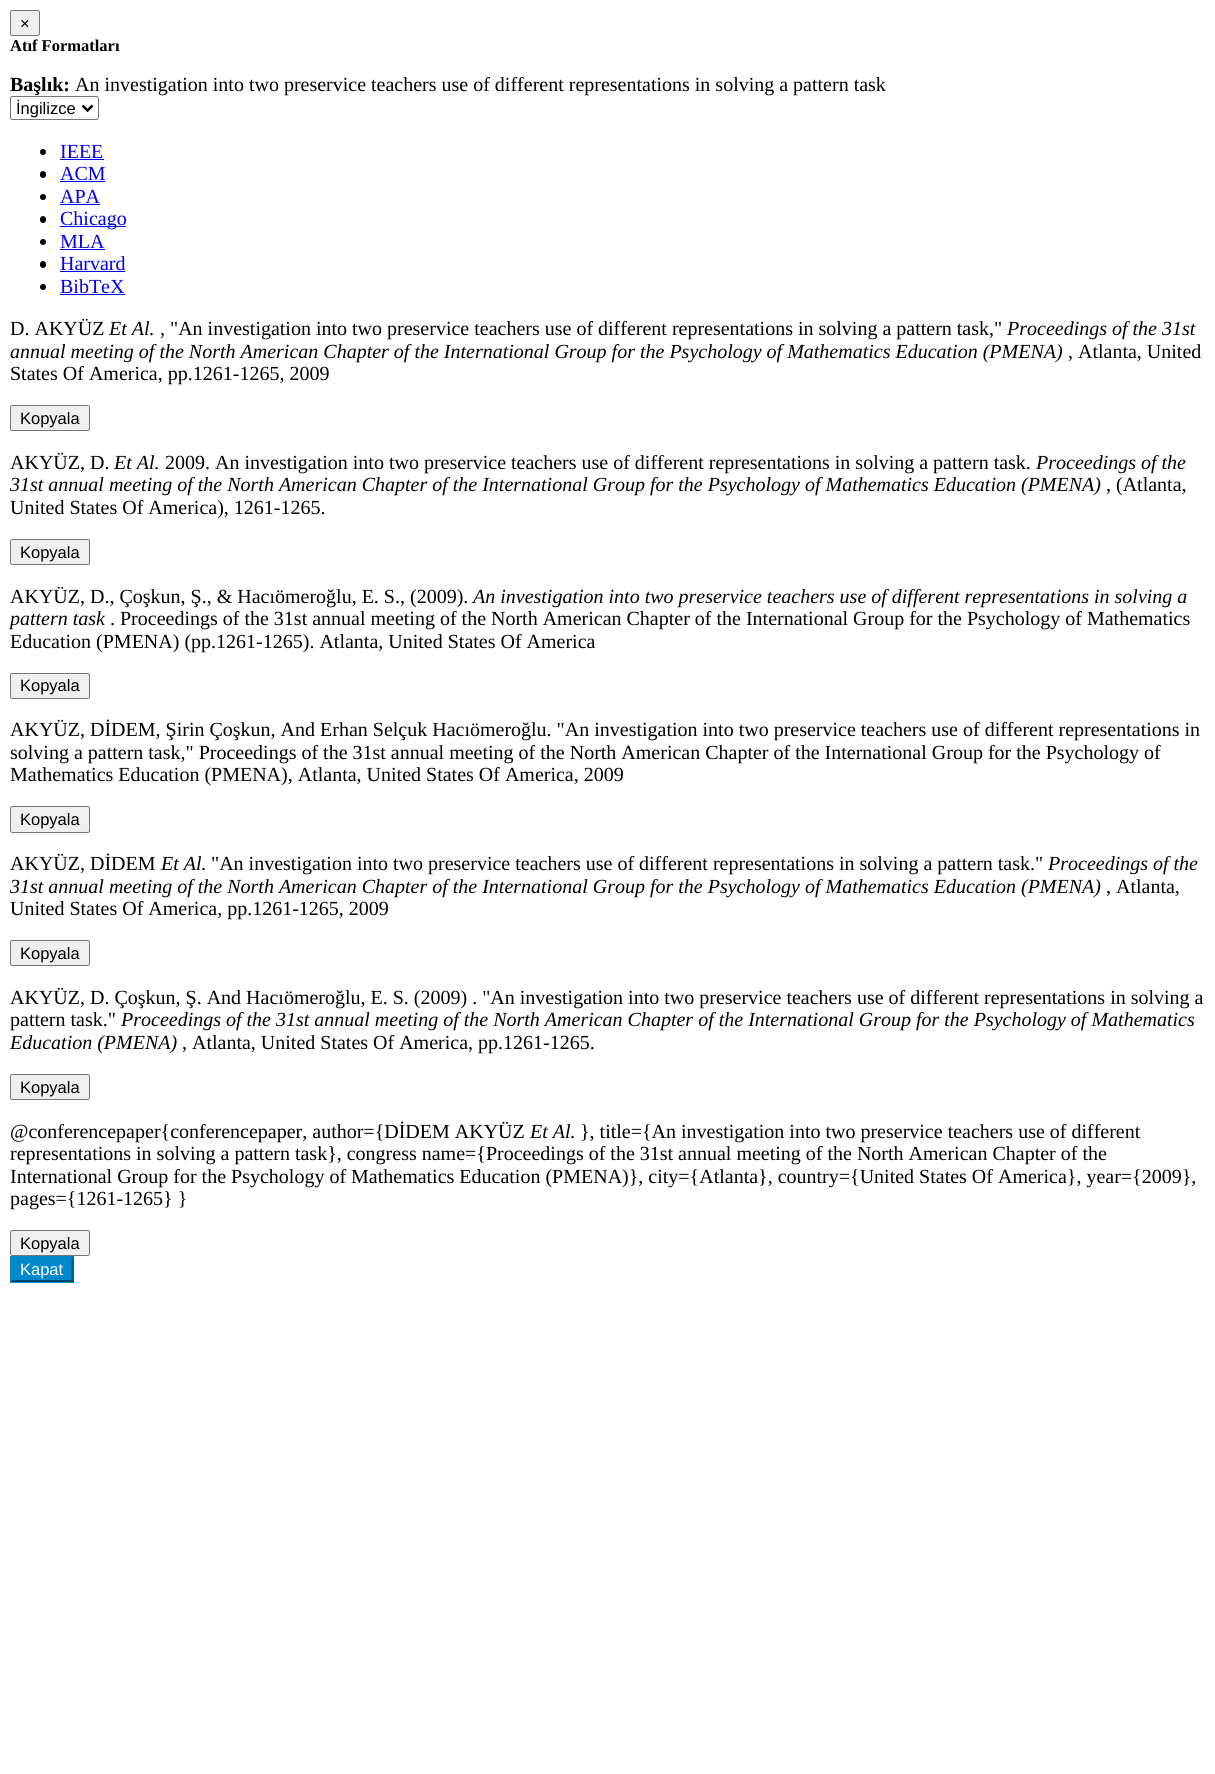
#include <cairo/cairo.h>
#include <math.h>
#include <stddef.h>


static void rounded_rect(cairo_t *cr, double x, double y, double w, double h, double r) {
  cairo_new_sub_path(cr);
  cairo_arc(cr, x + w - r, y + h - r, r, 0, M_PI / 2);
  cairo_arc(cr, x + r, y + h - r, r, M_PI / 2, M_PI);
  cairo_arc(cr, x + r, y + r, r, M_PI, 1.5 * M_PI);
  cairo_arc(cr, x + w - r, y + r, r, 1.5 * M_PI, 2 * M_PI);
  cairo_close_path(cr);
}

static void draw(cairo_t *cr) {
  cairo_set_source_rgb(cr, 1, 1, 1);
  cairo_paint(cr);
  cairo_set_source_rgb(cr, 239 / 255.0, 239 / 255.0, 239 / 255.0);
  rounded_rect(cr, 10.5, 10.5, 29, 25, 2);
  cairo_fill_preserve(cr);
  cairo_set_source_rgb(cr, 118 / 255.0, 118 / 255.0, 118 / 255.0);
  cairo_set_line_width(cr, 1);
  cairo_stroke(cr);
  rounded_rect(cr, 10.5, 96.5, 88, 23, 2);
  cairo_stroke(cr);
  cairo_new_path(cr);
  cairo_move_to(cr, 82.5, 105.5);
  cairo_line_to(cr, 87.5, 110.5);
  cairo_line_to(cr, 92.5, 105.5);
  cairo_set_source_rgb(cr, 0, 0, 0);
  cairo_set_line_width(cr, 2.5);
  cairo_stroke(cr);
  cairo_arc(cr, 43, 152, 3, 0, 2 * M_PI);
  cairo_fill(cr);
  cairo_set_source_rgb(cr, 0, 0, 238 / 255.0);
  cairo_rectangle(cr, 60, 159, 44, 1);
  cairo_fill(cr);
  cairo_set_source_rgb(cr, 0, 0, 0);
  rounded_rect(cr, 40, 171, 6, 7, 3);
  cairo_fill(cr);
  cairo_set_source_rgb(cr, 0, 0, 238 / 255.0);
  cairo_rectangle(cr, 60, 181, 45, 1);
  cairo_fill(cr);
  cairo_set_source_rgb(cr, 0, 0, 0);
  cairo_arc(cr, 43, 197, 3, 0, 2 * M_PI);
  cairo_fill(cr);
  cairo_set_source_rgb(cr, 0, 0, 238 / 255.0);
  cairo_rectangle(cr, 60, 204, 40, 1);
  cairo_fill(cr);
  cairo_set_source_rgb(cr, 0, 0, 0);
  rounded_rect(cr, 40, 216, 6, 7, 3);
  cairo_fill(cr);
  cairo_set_source_rgb(cr, 0, 0, 238 / 255.0);
  cairo_rectangle(cr, 60, 226, 66, 1);
  cairo_fill(cr);
  cairo_set_source_rgb(cr, 0, 0, 0);
  cairo_arc(cr, 43, 242, 3, 0, 2 * M_PI);
  cairo_fill(cr);
  cairo_set_source_rgb(cr, 0, 0, 238 / 255.0);
  cairo_rectangle(cr, 60, 249, 45, 1);
  cairo_fill(cr);
  cairo_set_source_rgb(cr, 0, 0, 0);
  rounded_rect(cr, 40, 261, 6, 7, 3);
  cairo_fill(cr);
  cairo_set_source_rgb(cr, 0, 0, 238 / 255.0);
  cairo_rectangle(cr, 60, 271, 65, 1);
  cairo_fill(cr);
  cairo_set_source_rgb(cr, 0, 0, 0);
  cairo_arc(cr, 43, 287, 3, 0, 2 * M_PI);
  cairo_fill(cr);
  cairo_set_source_rgb(cr, 0, 0, 238 / 255.0);
  cairo_rectangle(cr, 60, 294, 65, 1);
  cairo_fill(cr);
  cairo_set_source_rgb(cr, 239 / 255.0, 239 / 255.0, 239 / 255.0);
  rounded_rect(cr, 10.5, 405.5, 79, 25, 2);
  cairo_fill_preserve(cr);
  cairo_set_source_rgb(cr, 118 / 255.0, 118 / 255.0, 118 / 255.0);
  cairo_set_line_width(cr, 1);
  cairo_stroke(cr);
  cairo_set_source_rgb(cr, 239 / 255.0, 239 / 255.0, 239 / 255.0);
  rounded_rect(cr, 10.5, 539.5, 79, 25, 2);
  cairo_fill_preserve(cr);
  cairo_set_source_rgb(cr, 118 / 255.0, 118 / 255.0, 118 / 255.0);
  cairo_stroke(cr);
  cairo_set_source_rgb(cr, 239 / 255.0, 239 / 255.0, 239 / 255.0);
  rounded_rect(cr, 10.5, 673.5, 79, 25, 2);
  cairo_fill_preserve(cr);
  cairo_set_source_rgb(cr, 118 / 255.0, 118 / 255.0, 118 / 255.0);
  cairo_stroke(cr);
  cairo_set_source_rgb(cr, 239 / 255.0, 239 / 255.0, 239 / 255.0);
  rounded_rect(cr, 10.5, 806.5, 79, 26, 2);
  cairo_fill_preserve(cr);
  cairo_set_source_rgb(cr, 118 / 255.0, 118 / 255.0, 118 / 255.0);
  cairo_stroke(cr);
  cairo_set_source_rgb(cr, 239 / 255.0, 239 / 255.0, 239 / 255.0);
  rounded_rect(cr, 10.5, 940.5, 79, 25, 2);
  cairo_fill_preserve(cr);
  cairo_set_source_rgb(cr, 118 / 255.0, 118 / 255.0, 118 / 255.0);
  cairo_stroke(cr);
  cairo_set_source_rgb(cr, 239 / 255.0, 239 / 255.0, 239 / 255.0);
  rounded_rect(cr, 10.5, 1074.5, 79, 25, 2);
  cairo_fill_preserve(cr);
  cairo_set_source_rgb(cr, 118 / 255.0, 118 / 255.0, 118 / 255.0);
  cairo_stroke(cr);
  cairo_set_source_rgb(cr, 239 / 255.0, 239 / 255.0, 239 / 255.0);
  rounded_rect(cr, 10.5, 1230.5, 79, 25, 2);
  cairo_fill_preserve(cr);
  cairo_set_source_rgb(cr, 118 / 255.0, 118 / 255.0, 118 / 255.0);
  cairo_stroke(cr);
  cairo_set_source_rgb(cr, 0, 136 / 255.0, 204 / 255.0);
  cairo_rectangle(cr, 10, 1256, 64, 27);
  cairo_fill(cr);
  cairo_set_source_rgb(cr, 0, 91 / 255.0, 136 / 255.0);
  cairo_new_path(cr);
  cairo_move_to(cr, 74, 1256);
  cairo_line_to(cr, 74, 1282.5);
  cairo_line_to(cr, 71, 1280);
  cairo_line_to(cr, 71, 1259);
  cairo_close_path(cr);
  cairo_fill(cr);
  cairo_set_source_rgb(cr, 0, 68 / 255.0, 102 / 255.0);
  cairo_new_path(cr);
  cairo_move_to(cr, 74, 1282);
  cairo_line_to(cr, 10, 1282);
  cairo_line_to(cr, 12, 1280);
  cairo_line_to(cr, 71, 1280);
  cairo_close_path(cr);
  cairo_fill(cr);
  cairo_set_source_rgb(cr, 0, 136 / 255.0, 204 / 255.0);
  cairo_new_path(cr);
  cairo_move_to(cr, 10, 1282.5);
  cairo_line_to(cr, 10, 1256);
  cairo_line_to(cr, 12.5, 1259);
  cairo_line_to(cr, 12.5, 1280);
  cairo_close_path(cr);
  cairo_fill(cr);
  cairo_select_font_face(cr, "Liberation Sans", CAIRO_FONT_SLANT_NORMAL, CAIRO_FONT_WEIGHT_NORMAL);
  cairo_set_font_size(cr, 16.5);
  cairo_set_source_rgb(cr, 0, 0, 0);
  cairo_move_to(cr, 20, 29);
  cairo_show_text(cr, "×");
  cairo_select_font_face(cr, "Liberation Serif", CAIRO_FONT_SLANT_NORMAL, CAIRO_FONT_WEIGHT_BOLD);
  cairo_move_to(cr, 10, 51);
  cairo_show_text(cr, "Atıf Formatları");
  cairo_set_font_size(cr, 20);
  cairo_move_to(cr, 10, 91);
  cairo_show_text(cr, "Başlık:");
  cairo_select_font_face(cr, "Liberation Serif", CAIRO_FONT_SLANT_NORMAL, CAIRO_FONT_WEIGHT_NORMAL);
  cairo_move_to(cr, 75, 91);
  cairo_show_text(cr, "An investigation into two preservice teachers use of different representations in solving a pattern task");
  cairo_select_font_face(cr, "Liberation Sans", CAIRO_FONT_SLANT_NORMAL, CAIRO_FONT_WEIGHT_NORMAL);
  cairo_set_font_size(cr, 16.5);
  cairo_move_to(cr, 16, 114);
  cairo_show_text(cr, "İngilizce");
  cairo_select_font_face(cr, "Liberation Serif", CAIRO_FONT_SLANT_NORMAL, CAIRO_FONT_WEIGHT_NORMAL);
  cairo_set_font_size(cr, 20);
  cairo_set_source_rgb(cr, 0, 0, 238 / 255.0);
  cairo_move_to(cr, 60, 158);
  cairo_show_text(cr, "IEEE");
  cairo_move_to(cr, 60, 180);
  cairo_show_text(cr, "ACM");
  cairo_move_to(cr, 60, 203);
  cairo_show_text(cr, "APA");
  cairo_move_to(cr, 60, 225);
  cairo_show_text(cr, "Chicago");
  cairo_move_to(cr, 60, 248);
  cairo_show_text(cr, "MLA");
  cairo_move_to(cr, 60, 270);
  cairo_show_text(cr, "Harvard");
  cairo_move_to(cr, 60, 293);
  cairo_show_text(cr, "BibTeX");
  cairo_set_source_rgb(cr, 0, 0, 0);
  cairo_move_to(cr, 10, 335);
  cairo_show_text(cr, "D. AKYÜZ");
  cairo_select_font_face(cr, "Liberation Serif", CAIRO_FONT_SLANT_ITALIC, CAIRO_FONT_WEIGHT_NORMAL);
  cairo_move_to(cr, 109, 335);
  cairo_show_text(cr, "Et Al.");
  cairo_select_font_face(cr, "Liberation Serif", CAIRO_FONT_SLANT_NORMAL, CAIRO_FONT_WEIGHT_NORMAL);
  cairo_move_to(cr, 160, 335);
  cairo_show_text(cr, ", \"An investigation into two preservice teachers use of different representations in solving a pattern task,\"");
  cairo_select_font_face(cr, "Liberation Serif", CAIRO_FONT_SLANT_ITALIC, CAIRO_FONT_WEIGHT_NORMAL);
  cairo_move_to(cr, 1007, 335);
  cairo_show_text(cr, "Proceedings of the 31st");
  cairo_move_to(cr, 10, 358);
  cairo_show_text(cr, "annual meeting of the North American Chapter of the International Group for the Psychology of Mathematics Education (PMENA)");
  cairo_select_font_face(cr, "Liberation Serif", CAIRO_FONT_SLANT_NORMAL, CAIRO_FONT_WEIGHT_NORMAL);
  cairo_move_to(cr, 1068, 358);
  cairo_show_text(cr, ", Atlanta, United");
  cairo_move_to(cr, 10, 380);
  cairo_show_text(cr, "States Of America, pp.1261-1265, 2009");
  cairo_select_font_face(cr, "Liberation Sans", CAIRO_FONT_SLANT_NORMAL, CAIRO_FONT_WEIGHT_NORMAL);
  cairo_set_font_size(cr, 16.5);
  cairo_move_to(cr, 20, 424);
  cairo_show_text(cr, "Kopyala");
  cairo_select_font_face(cr, "Liberation Serif", CAIRO_FONT_SLANT_NORMAL, CAIRO_FONT_WEIGHT_NORMAL);
  cairo_set_font_size(cr, 20);
  cairo_move_to(cr, 10, 469);
  cairo_show_text(cr, "AKYÜZ, D.");
  cairo_select_font_face(cr, "Liberation Serif", CAIRO_FONT_SLANT_ITALIC, CAIRO_FONT_WEIGHT_NORMAL);
  cairo_move_to(cr, 114, 469);
  cairo_show_text(cr, "Et Al.");
  cairo_select_font_face(cr, "Liberation Serif", CAIRO_FONT_SLANT_NORMAL, CAIRO_FONT_WEIGHT_NORMAL);
  cairo_move_to(cr, 165, 469);
  cairo_show_text(cr, "2009. An investigation into two preservice teachers use of different representations in solving a pattern task.");
  cairo_select_font_face(cr, "Liberation Serif", CAIRO_FONT_SLANT_ITALIC, CAIRO_FONT_WEIGHT_NORMAL);
  cairo_move_to(cr, 1036, 469);
  cairo_show_text(cr, "Proceedings of the");
  cairo_move_to(cr, 10, 491);
  cairo_show_text(cr, "31st annual meeting of the North American Chapter of the International Group for the Psychology of Mathematics Education (PMENA)");
  cairo_select_font_face(cr, "Liberation Serif", CAIRO_FONT_SLANT_NORMAL, CAIRO_FONT_WEIGHT_NORMAL);
  cairo_move_to(cr, 1106, 491);
  cairo_show_text(cr, ", (Atlanta,");
  cairo_move_to(cr, 10, 514);
  cairo_show_text(cr, "United States Of America), 1261-1265.");
  cairo_select_font_face(cr, "Liberation Sans", CAIRO_FONT_SLANT_NORMAL, CAIRO_FONT_WEIGHT_NORMAL);
  cairo_set_font_size(cr, 16.5);
  cairo_move_to(cr, 20, 558);
  cairo_show_text(cr, "Kopyala");
  cairo_select_font_face(cr, "Liberation Serif", CAIRO_FONT_SLANT_NORMAL, CAIRO_FONT_WEIGHT_NORMAL);
  cairo_set_font_size(cr, 20);
  cairo_move_to(cr, 10, 603);
  cairo_show_text(cr, "AKYÜZ, D., Çoşkun, Ş., & Hacıömeroğlu, E. S., (2009).");
  cairo_select_font_face(cr, "Liberation Serif", CAIRO_FONT_SLANT_ITALIC, CAIRO_FONT_WEIGHT_NORMAL);
  cairo_move_to(cr, 473, 603);
  cairo_show_text(cr, "An investigation into two preservice teachers use of different representations in solving a");
  cairo_move_to(cr, 10, 625);
  cairo_show_text(cr, "pattern task");
  cairo_select_font_face(cr, "Liberation Serif", CAIRO_FONT_SLANT_NORMAL, CAIRO_FONT_WEIGHT_NORMAL);
  cairo_move_to(cr, 110, 625);
  cairo_show_text(cr, ". Proceedings of the 31st annual meeting of the North American Chapter of the International Group for the Psychology of Mathematics");
  cairo_move_to(cr, 10, 648);
  cairo_show_text(cr, "Education (PMENA) (pp.1261-1265). Atlanta, United States Of America");
  cairo_select_font_face(cr, "Liberation Sans", CAIRO_FONT_SLANT_NORMAL, CAIRO_FONT_WEIGHT_NORMAL);
  cairo_set_font_size(cr, 16.5);
  cairo_move_to(cr, 20, 691);
  cairo_show_text(cr, "Kopyala");
  cairo_select_font_face(cr, "Liberation Serif", CAIRO_FONT_SLANT_NORMAL, CAIRO_FONT_WEIGHT_NORMAL);
  cairo_set_font_size(cr, 20);
  cairo_move_to(cr, 10, 736);
  cairo_show_text(cr, "AKYÜZ, DİDEM, Şirin Çoşkun, And Erhan Selçuk Hacıömeroğlu. \"An investigation into two preservice teachers use of different representations in");
  cairo_move_to(cr, 10, 759);
  cairo_show_text(cr, "solving a pattern task,\" Proceedings of the 31st annual meeting of the North American Chapter of the International Group for the Psychology of");
  cairo_move_to(cr, 10, 781);
  cairo_show_text(cr, "Mathematics Education (PMENA), Atlanta, United States Of America, 2009");
  cairo_select_font_face(cr, "Liberation Sans", CAIRO_FONT_SLANT_NORMAL, CAIRO_FONT_WEIGHT_NORMAL);
  cairo_set_font_size(cr, 16.5);
  cairo_move_to(cr, 20, 825);
  cairo_show_text(cr, "Kopyala");
  cairo_select_font_face(cr, "Liberation Serif", CAIRO_FONT_SLANT_NORMAL, CAIRO_FONT_WEIGHT_NORMAL);
  cairo_set_font_size(cr, 20);
  cairo_move_to(cr, 10, 870);
  cairo_show_text(cr, "AKYÜZ, DİDEM");
  cairo_select_font_face(cr, "Liberation Serif", CAIRO_FONT_SLANT_ITALIC, CAIRO_FONT_WEIGHT_NORMAL);
  cairo_move_to(cr, 161, 870);
  cairo_show_text(cr, "Et Al.");
  cairo_select_font_face(cr, "Liberation Serif", CAIRO_FONT_SLANT_NORMAL, CAIRO_FONT_WEIGHT_NORMAL);
  cairo_move_to(cr, 211, 870);
  cairo_show_text(cr, "\"An investigation into two preservice teachers use of different representations in solving a pattern task.\"");
  cairo_select_font_face(cr, "Liberation Serif", CAIRO_FONT_SLANT_ITALIC, CAIRO_FONT_WEIGHT_NORMAL);
  cairo_move_to(cr, 1048, 870);
  cairo_show_text(cr, "Proceedings of the");
  cairo_move_to(cr, 10, 893);
  cairo_show_text(cr, "31st annual meeting of the North American Chapter of the International Group for the Psychology of Mathematics Education (PMENA)");
  cairo_select_font_face(cr, "Liberation Serif", CAIRO_FONT_SLANT_NORMAL, CAIRO_FONT_WEIGHT_NORMAL);
  cairo_move_to(cr, 1106, 893);
  cairo_show_text(cr, ", Atlanta,");
  cairo_move_to(cr, 10, 915);
  cairo_show_text(cr, "United States Of America, pp.1261-1265, 2009");
  cairo_select_font_face(cr, "Liberation Sans", CAIRO_FONT_SLANT_NORMAL, CAIRO_FONT_WEIGHT_NORMAL);
  cairo_set_font_size(cr, 16.5);
  cairo_move_to(cr, 20, 959);
  cairo_show_text(cr, "Kopyala");
  cairo_select_font_face(cr, "Liberation Serif", CAIRO_FONT_SLANT_NORMAL, CAIRO_FONT_WEIGHT_NORMAL);
  cairo_set_font_size(cr, 20);
  cairo_move_to(cr, 10, 1004);
  cairo_show_text(cr, "AKYÜZ, D. Çoşkun, Ş. And Hacıömeroğlu, E. S. (2009) . \"An investigation into two preservice teachers use of different representations in solving a");
  cairo_move_to(cr, 10, 1026);
  cairo_show_text(cr, "pattern task.\"");
  cairo_select_font_face(cr, "Liberation Serif", CAIRO_FONT_SLANT_ITALIC, CAIRO_FONT_WEIGHT_NORMAL);
  cairo_move_to(cr, 121, 1026);
  cairo_show_text(cr, "Proceedings of the 31st annual meeting of the North American Chapter of the International Group for the Psychology of Mathematics");
  cairo_move_to(cr, 10, 1049);
  cairo_show_text(cr, "Education (PMENA)");
  cairo_select_font_face(cr, "Liberation Serif", CAIRO_FONT_SLANT_NORMAL, CAIRO_FONT_WEIGHT_NORMAL);
  cairo_move_to(cr, 182, 1049);
  cairo_show_text(cr, ", Atlanta, United States Of America, pp.1261-1265.");
  cairo_select_font_face(cr, "Liberation Sans", CAIRO_FONT_SLANT_NORMAL, CAIRO_FONT_WEIGHT_NORMAL);
  cairo_set_font_size(cr, 16.5);
  cairo_move_to(cr, 20, 1093);
  cairo_show_text(cr, "Kopyala");
  cairo_select_font_face(cr, "Liberation Serif", CAIRO_FONT_SLANT_NORMAL, CAIRO_FONT_WEIGHT_NORMAL);
  cairo_set_font_size(cr, 20);
  cairo_move_to(cr, 10, 1138);
  cairo_show_text(cr, "@conferencepaper{conferencepaper, author={DİDEM AKYÜZ");
  cairo_select_font_face(cr, "Liberation Serif", CAIRO_FONT_SLANT_ITALIC, CAIRO_FONT_WEIGHT_NORMAL);
  cairo_move_to(cr, 530, 1138);
  cairo_show_text(cr, "Et Al.");
  cairo_select_font_face(cr, "Liberation Serif", CAIRO_FONT_SLANT_NORMAL, CAIRO_FONT_WEIGHT_NORMAL);
  cairo_move_to(cr, 580, 1138);
  cairo_show_text(cr, "}, title={An investigation into two preservice teachers use of different");
  cairo_move_to(cr, 10, 1160);
  cairo_show_text(cr, "representations in solving a pattern task}, congress name={Proceedings of the 31st annual meeting of the North American Chapter of the");
  cairo_move_to(cr, 10, 1183);
  cairo_show_text(cr, "International Group for the Psychology of Mathematics Education (PMENA)}, city={Atlanta}, country={United States Of America}, year={2009},");
  cairo_move_to(cr, 10, 1205);
  cairo_show_text(cr, "pages={1261-1265} }");
  cairo_select_font_face(cr, "Liberation Sans", CAIRO_FONT_SLANT_NORMAL, CAIRO_FONT_WEIGHT_NORMAL);
  cairo_set_font_size(cr, 16.5);
  cairo_move_to(cr, 20, 1249);
  cairo_show_text(cr, "Kopyala");
  cairo_set_source_rgb(cr, 1, 1, 1);
  cairo_move_to(cr, 20, 1275);
  cairo_show_text(cr, "Kapat");
}

int main(void) {
  cairo_surface_t *surface = cairo_image_surface_create(CAIRO_FORMAT_RGB24, 1215, 1774);
  cairo_t *cr = cairo_create(surface);
  cairo_font_options_t *options = cairo_font_options_create();
  cairo_font_options_set_hint_metrics(options, CAIRO_HINT_METRICS_OFF);
  cairo_font_options_set_hint_style(options, CAIRO_HINT_STYLE_NONE);
  cairo_set_font_options(cr, options);
  cairo_set_miter_limit(cr, 4);
  draw(cr);
  cairo_surface_write_to_png(surface, "out.png");
  cairo_font_options_destroy(options);
  cairo_destroy(cr);
  cairo_surface_destroy(surface);
  return 0;
}
